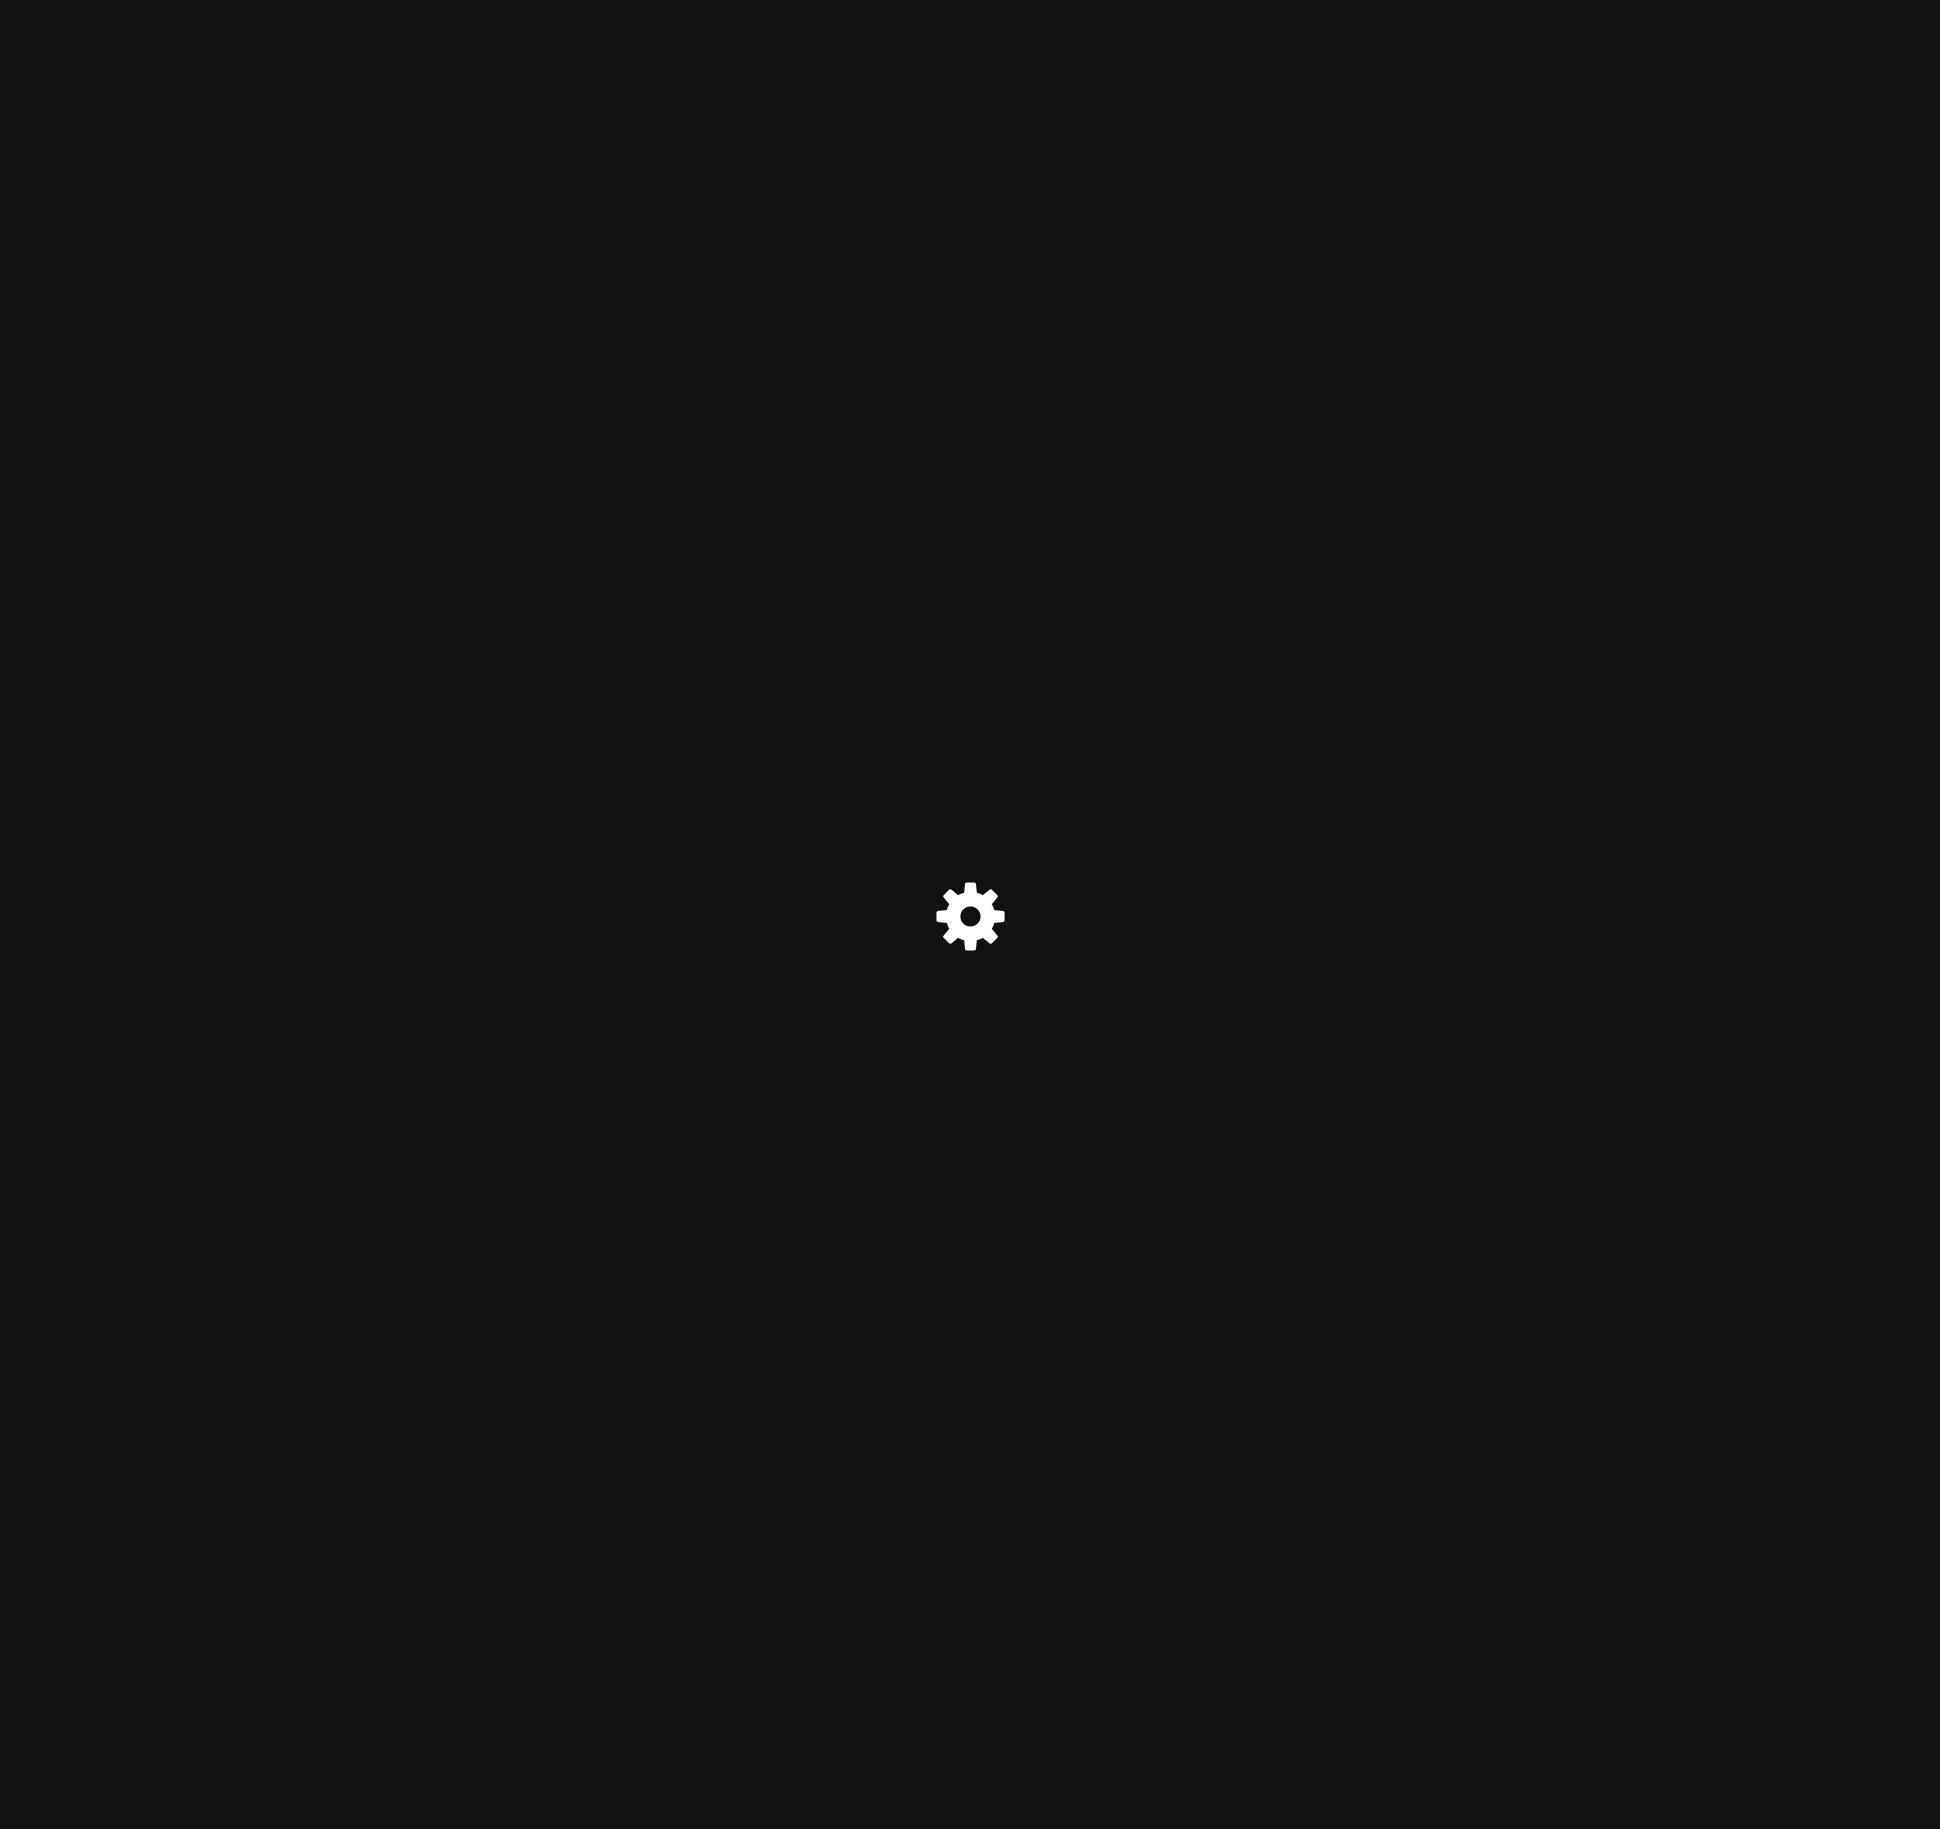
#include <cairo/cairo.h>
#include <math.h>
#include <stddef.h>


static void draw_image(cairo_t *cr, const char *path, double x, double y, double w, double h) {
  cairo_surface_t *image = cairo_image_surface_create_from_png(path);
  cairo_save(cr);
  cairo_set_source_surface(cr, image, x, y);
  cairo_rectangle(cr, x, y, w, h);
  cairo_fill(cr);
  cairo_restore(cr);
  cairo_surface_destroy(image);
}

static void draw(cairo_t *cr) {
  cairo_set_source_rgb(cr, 17 / 255.0, 17 / 255.0, 17 / 255.0);
  cairo_paint(cr);
  draw_image(cr, "images/1.png", 936, 882, 69, 69);
}

int main(void) {
  cairo_surface_t *surface = cairo_image_surface_create(CAIRO_FORMAT_RGB24, 1940, 1829);
  cairo_t *cr = cairo_create(surface);
  cairo_font_options_t *options = cairo_font_options_create();
  cairo_font_options_set_hint_metrics(options, CAIRO_HINT_METRICS_OFF);
  cairo_font_options_set_hint_style(options, CAIRO_HINT_STYLE_NONE);
  cairo_set_font_options(cr, options);
  cairo_set_miter_limit(cr, 4);
  draw(cr);
  cairo_surface_write_to_png(surface, "out.png");
  cairo_font_options_destroy(options);
  cairo_destroy(cr);
  cairo_surface_destroy(surface);
  return 0;
}
